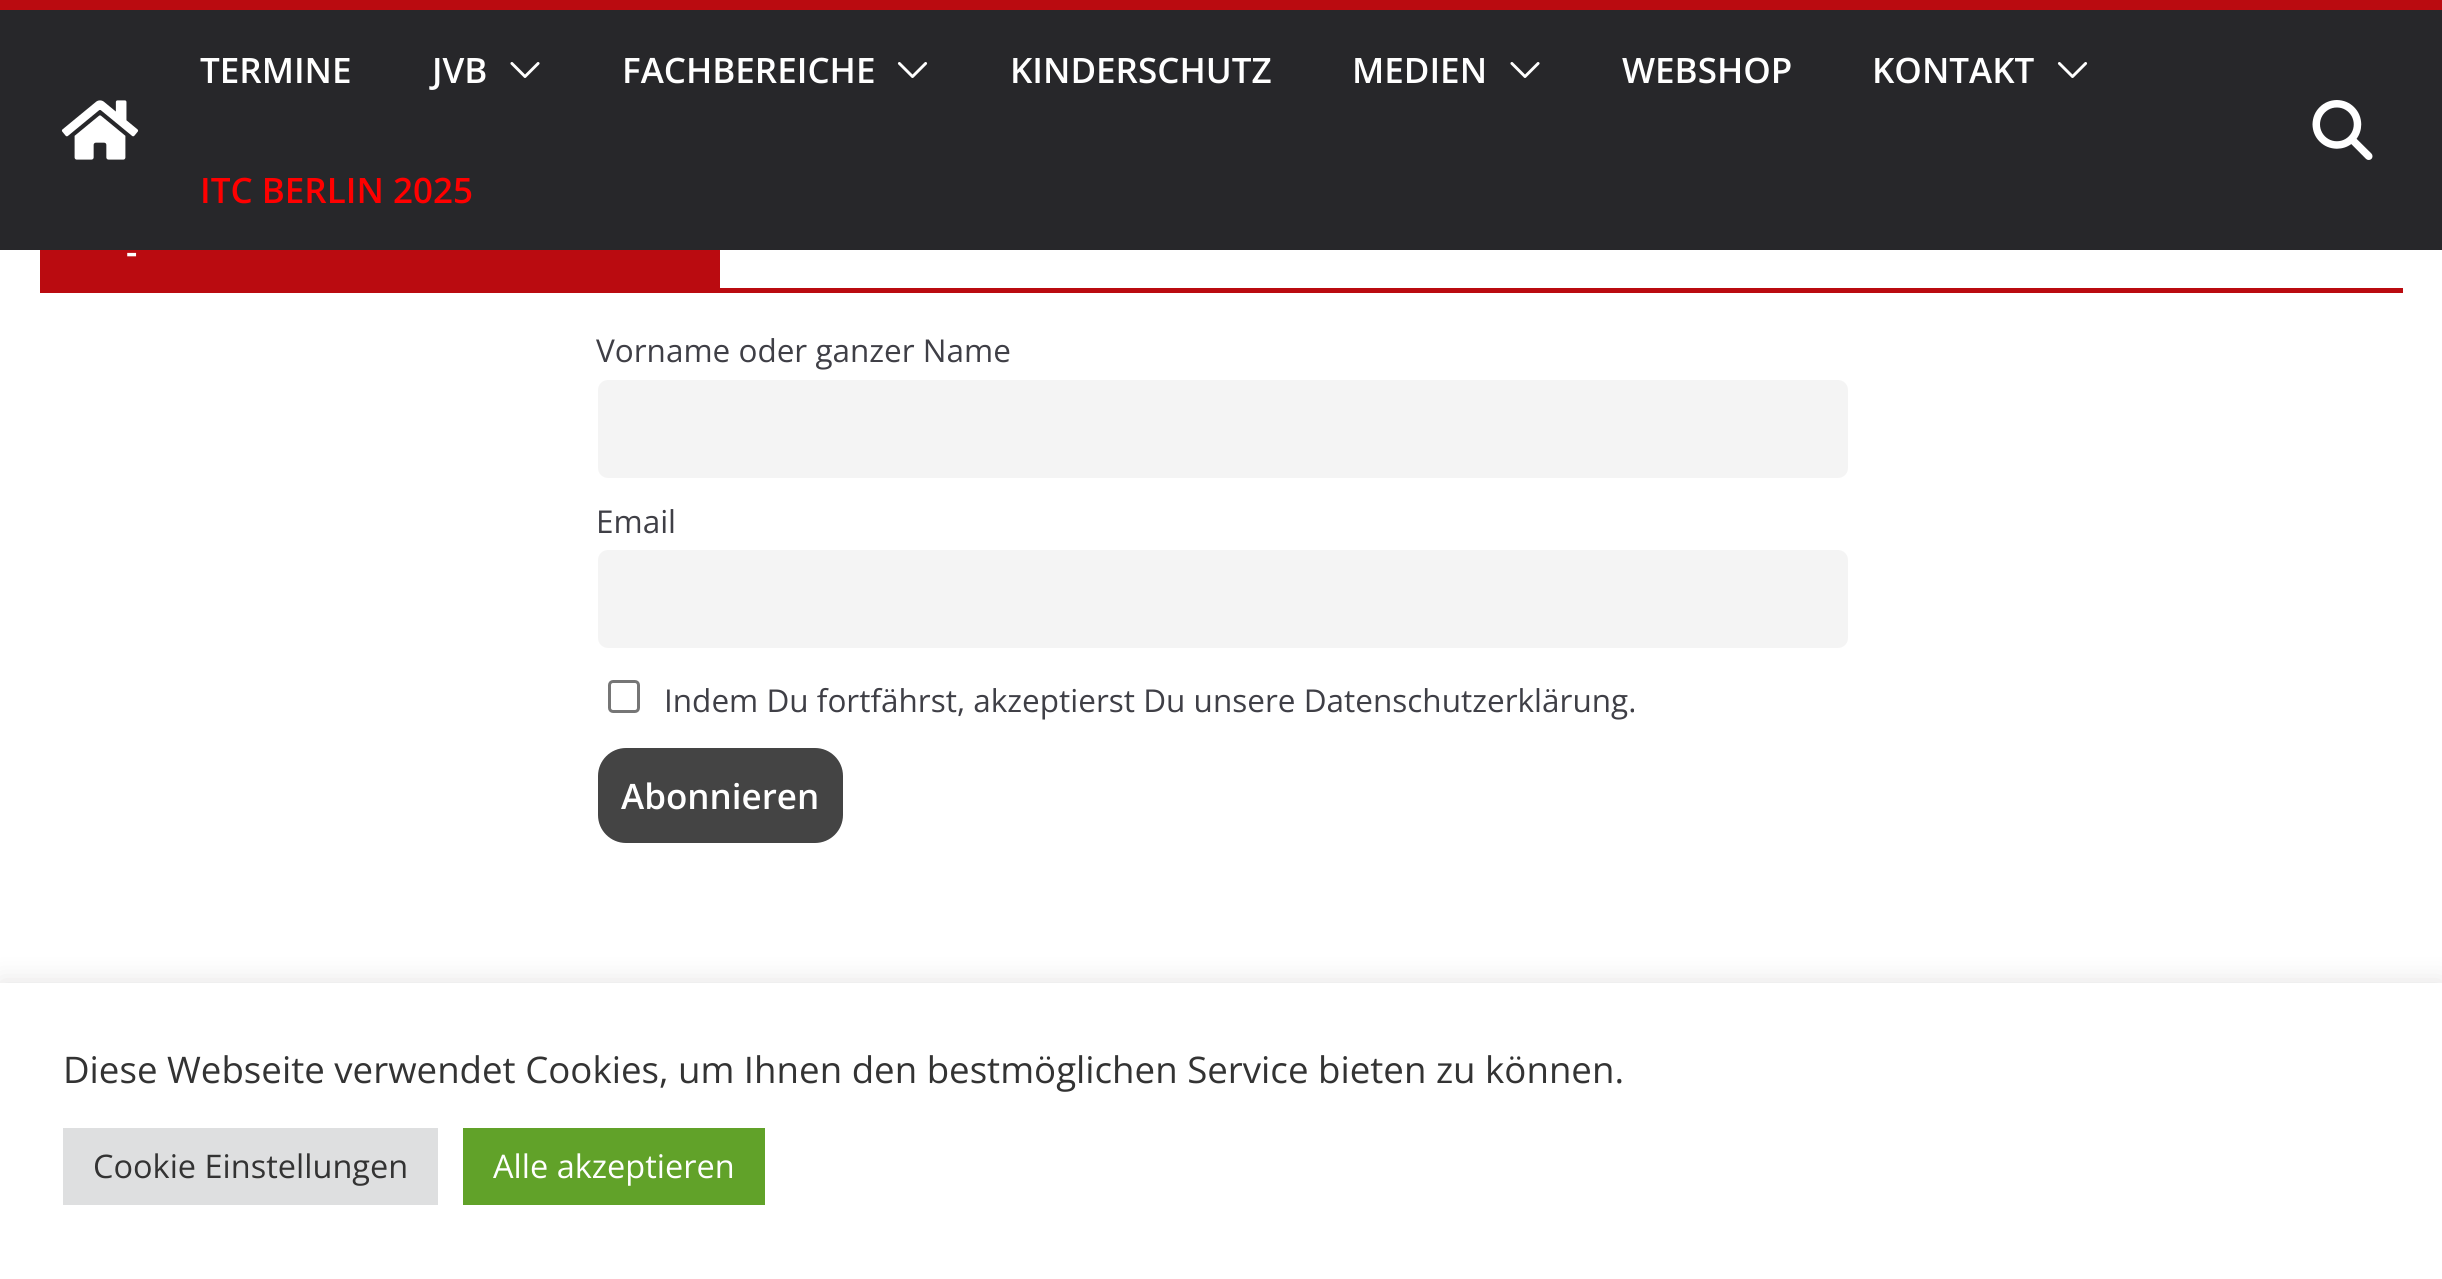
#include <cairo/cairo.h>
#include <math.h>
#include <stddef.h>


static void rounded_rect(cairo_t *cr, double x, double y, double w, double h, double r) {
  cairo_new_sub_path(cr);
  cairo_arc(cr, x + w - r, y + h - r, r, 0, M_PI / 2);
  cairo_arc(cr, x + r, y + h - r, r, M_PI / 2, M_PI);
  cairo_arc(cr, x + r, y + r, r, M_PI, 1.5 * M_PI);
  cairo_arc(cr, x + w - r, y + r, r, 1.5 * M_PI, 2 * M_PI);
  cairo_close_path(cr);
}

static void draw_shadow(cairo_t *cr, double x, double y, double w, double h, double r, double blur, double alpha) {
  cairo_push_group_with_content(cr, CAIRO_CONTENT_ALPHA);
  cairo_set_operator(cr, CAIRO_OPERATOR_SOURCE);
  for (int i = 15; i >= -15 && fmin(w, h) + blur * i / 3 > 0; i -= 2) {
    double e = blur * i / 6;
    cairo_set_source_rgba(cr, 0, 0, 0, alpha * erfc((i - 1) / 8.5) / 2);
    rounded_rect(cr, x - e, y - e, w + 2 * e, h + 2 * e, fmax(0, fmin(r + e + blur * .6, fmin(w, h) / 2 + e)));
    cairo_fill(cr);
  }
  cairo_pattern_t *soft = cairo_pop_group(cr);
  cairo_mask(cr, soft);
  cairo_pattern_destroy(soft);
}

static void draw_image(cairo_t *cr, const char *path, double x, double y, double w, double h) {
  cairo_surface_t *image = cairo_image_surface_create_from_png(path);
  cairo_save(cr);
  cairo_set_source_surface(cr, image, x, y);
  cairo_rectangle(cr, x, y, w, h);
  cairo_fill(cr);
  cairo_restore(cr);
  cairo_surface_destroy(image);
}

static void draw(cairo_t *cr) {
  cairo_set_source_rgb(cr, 1, 1, 1);
  cairo_paint(cr);
  cairo_set_source_rgb(cr, 39 / 255.0, 39 / 255.0, 42 / 255.0);
  cairo_rectangle(cr, 0, 10, 2442, 240);
  cairo_fill(cr);
  cairo_set_source_rgb(cr, 186 / 255.0, 11 / 255.0, 16 / 255.0);
  cairo_rectangle(cr, 0, 0, 2442, 10);
  cairo_fill(cr);
  draw_image(cr, "images/1.png", 61, 100, 78, 60);
  draw_image(cr, "images/2.png", 510, 62, 30, 16);
  draw_image(cr, "images/3.png", 897, 62, 31, 16);
  draw_image(cr, "images/2.png", 1510, 62, 30, 16);
  draw_image(cr, "images/3.png", 2057, 62, 31, 16);
  draw_image(cr, "images/4.png", 2312, 100, 61, 60);
  cairo_rectangle(cr, 40, 288, 2363, 5);
  cairo_fill(cr);
  cairo_rectangle(cr, 40, 250, 680, 38);
  cairo_fill(cr);
  cairo_set_source_rgb(cr, 244 / 255.0, 244 / 255.0, 244 / 255.0);
  rounded_rect(cr, 598, 380, 1250, 98, 10);
  cairo_fill(cr);
  rounded_rect(cr, 598, 550, 1250, 98, 10);
  cairo_fill(cr);
  rounded_rect(cr, 609.5, 681.5, 29, 30, 3.5);
  cairo_set_source_rgb(cr, 118 / 255.0, 118 / 255.0, 118 / 255.0);
  cairo_set_line_width(cr, 3);
  cairo_stroke(cr);
  cairo_set_source_rgb(cr, 68 / 255.0, 68 / 255.0, 68 / 255.0);
  rounded_rect(cr, 598, 748, 245, 95, 28);
  cairo_fill(cr);
  cairo_set_source_rgb(cr, 172 / 255.0, 171 / 255.0, 171 / 255.0);
  draw_shadow(cr, 0, 980, 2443, 298, 0, 12.5, 0.3);
  cairo_set_source_rgb(cr, 1, 1, 1);
  cairo_rectangle(cr, 0, 983, 2442, 296);
  cairo_fill(cr);
  cairo_set_source_rgb(cr, 222 / 255.0, 223 / 255.0, 224 / 255.0);
  cairo_rectangle(cr, 63, 1128, 375, 77);
  cairo_fill(cr);
  cairo_set_source_rgb(cr, 97 / 255.0, 162 / 255.0, 41 / 255.0);
  cairo_rectangle(cr, 463, 1128, 302, 77);
  cairo_fill(cr);
  cairo_select_font_face(cr, "Open Sans SemiBold", CAIRO_FONT_SLANT_NORMAL, CAIRO_FONT_WEIGHT_NORMAL);
  cairo_set_font_size(cr, 35);
  cairo_set_source_rgb(cr, 1, 1, 1);
  cairo_move_to(cr, 200, 83);
  cairo_show_text(cr, "TERMINE");
  cairo_move_to(cr, 432, 83);
  cairo_show_text(cr, "JVB");
  cairo_move_to(cr, 622, 83);
  cairo_show_text(cr, "FACHBEREICHE");
  cairo_move_to(cr, 1010, 83);
  cairo_show_text(cr, "KINDERSCHUTZ");
  cairo_move_to(cr, 1352, 83);
  cairo_show_text(cr, "MEDIEN");
  cairo_move_to(cr, 1622, 83);
  cairo_show_text(cr, "WEBSHOP");
  cairo_move_to(cr, 1872, 83);
  cairo_show_text(cr, "KONTAKT");
  cairo_set_source_rgb(cr, 1, 0, 0);
  cairo_move_to(cr, 200, 203);
  cairo_show_text(cr, "ITC BERLIN 2025");
  cairo_set_source_rgb(cr, 1, 1, 1);
  cairo_move_to(cr, 126, 264);
  cairo_show_text(cr, "-");
  cairo_select_font_face(cr, "Open Sans", CAIRO_FONT_SLANT_NORMAL, CAIRO_FONT_WEIGHT_NORMAL);
  cairo_set_font_size(cr, 31.5);
  cairo_set_source_rgb(cr, 63 / 255.0, 63 / 255.0, 70 / 255.0);
  cairo_move_to(cr, 596, 362);
  cairo_show_text(cr, "Vorname oder ganzer Name");
  cairo_move_to(cr, 596, 533);
  cairo_show_text(cr, "Email");
  cairo_move_to(cr, 664, 712);
  cairo_show_text(cr, "Indem Du fortfährst, akzeptierst Du unsere Datenschutzerklärung.");
  cairo_select_font_face(cr, "Open Sans SemiBold", CAIRO_FONT_SLANT_NORMAL, CAIRO_FONT_WEIGHT_NORMAL);
  cairo_set_font_size(cr, 35);
  cairo_set_source_rgb(cr, 1, 1, 1);
  cairo_move_to(cr, 621, 809);
  cairo_show_text(cr, "Abonnieren");
  cairo_select_font_face(cr, "Open Sans", CAIRO_FONT_SLANT_NORMAL, CAIRO_FONT_WEIGHT_NORMAL);
  cairo_set_font_size(cr, 36.65);
  cairo_set_source_rgb(cr, 51 / 255.0, 51 / 255.0, 51 / 255.0);
  cairo_move_to(cr, 63, 1083);
  cairo_show_text(cr, "Diese Webseite verwendet Cookies, um Ihnen den bestmöglichen Service bieten zu können.");
  cairo_set_font_size(cr, 32.5);
  cairo_move_to(cr, 93, 1178);
  cairo_show_text(cr, "Cookie Einstellungen");
  cairo_set_source_rgb(cr, 1, 1, 1);
  cairo_move_to(cr, 493, 1178);
  cairo_show_text(cr, "Alle akzeptieren");
}

int main(void) {
  cairo_surface_t *surface = cairo_image_surface_create(CAIRO_FORMAT_RGB24, 2442, 1279);
  cairo_t *cr = cairo_create(surface);
  cairo_font_options_t *options = cairo_font_options_create();
  cairo_font_options_set_hint_metrics(options, CAIRO_HINT_METRICS_OFF);
  cairo_font_options_set_hint_style(options, CAIRO_HINT_STYLE_NONE);
  cairo_set_font_options(cr, options);
  cairo_set_miter_limit(cr, 4);
  draw(cr);
  cairo_surface_write_to_png(surface, "out.png");
  cairo_font_options_destroy(options);
  cairo_destroy(cr);
  cairo_surface_destroy(surface);
  return 0;
}
